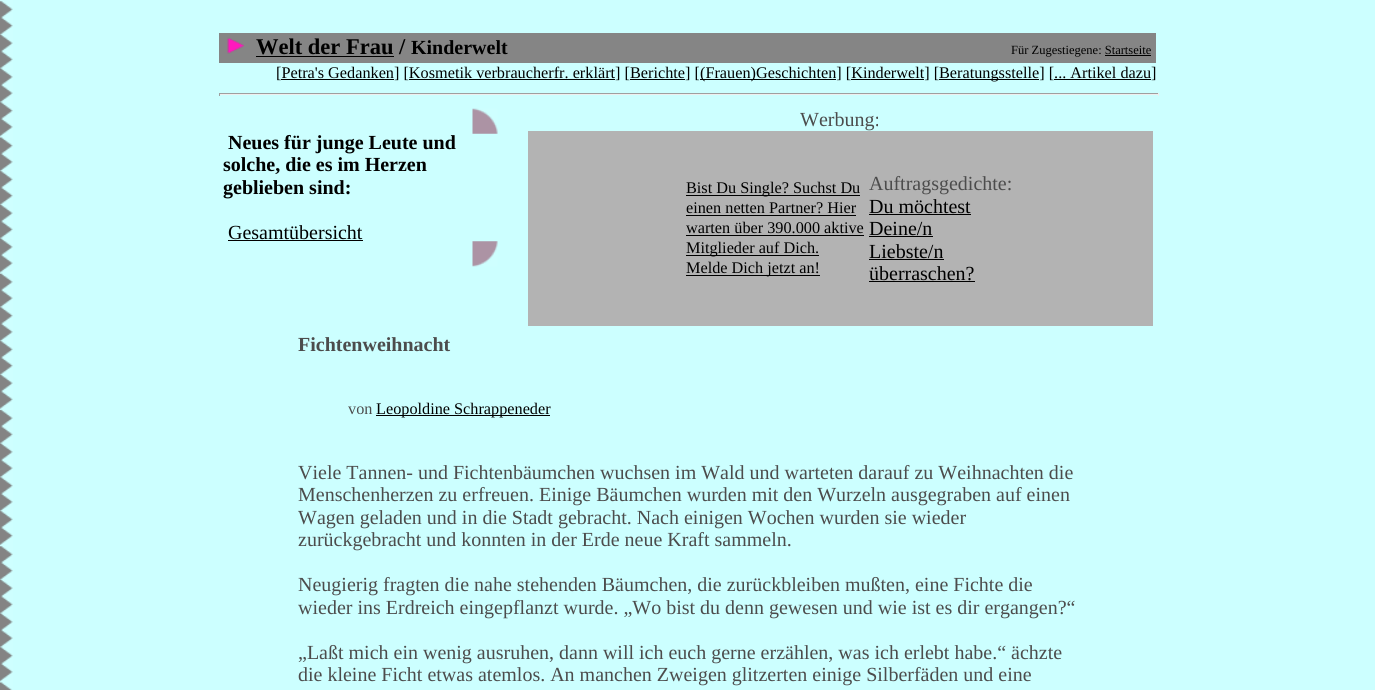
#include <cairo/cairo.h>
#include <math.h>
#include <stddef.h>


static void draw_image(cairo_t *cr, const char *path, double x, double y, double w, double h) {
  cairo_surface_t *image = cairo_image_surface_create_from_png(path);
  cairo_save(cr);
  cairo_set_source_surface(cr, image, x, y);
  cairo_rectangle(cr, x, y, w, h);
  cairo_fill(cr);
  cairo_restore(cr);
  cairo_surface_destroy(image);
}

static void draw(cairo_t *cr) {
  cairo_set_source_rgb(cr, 204 / 255.0, 1, 1);
  cairo_paint(cr);
  draw_image(cr, "images/1.png", 0, 0, 13, 690);
  cairo_set_source_rgb(cr, 133 / 255.0, 133 / 255.0, 133 / 255.0);
  cairo_rectangle(cr, 219, 33, 937, 30);
  cairo_fill(cr);
  draw_image(cr, "images/2.png", 227, 37, 17, 17);
  cairo_set_source_rgb(cr, 0, 0, 0);
  cairo_rectangle(cr, 256, 56, 138, 1);
  cairo_fill(cr);
  cairo_rectangle(cr, 1105, 55, 46, 1);
  cairo_fill(cr);
  cairo_rectangle(cr, 281, 79, 113, 1);
  cairo_fill(cr);
  cairo_rectangle(cr, 409, 79, 206, 1);
  cairo_fill(cr);
  cairo_rectangle(cr, 630, 79, 55, 1);
  cairo_fill(cr);
  cairo_rectangle(cr, 700, 79, 136, 1);
  cairo_fill(cr);
  cairo_rectangle(cr, 851, 79, 73, 1);
  cairo_fill(cr);
  cairo_rectangle(cr, 939, 79, 100, 1);
  cairo_fill(cr);
  cairo_rectangle(cr, 1054, 79, 97, 1);
  cairo_fill(cr);
  cairo_set_source_rgb(cr, 159 / 255.0, 159 / 255.0, 159 / 255.0);
  cairo_rectangle(cr, 219, 93, 940, 1);
  cairo_fill(cr);
  cairo_set_source_rgb(cr, 238 / 255.0, 238 / 255.0, 238 / 255.0);
  cairo_rectangle(cr, 1158, 93, 1, 3);
  cairo_fill(cr);
  cairo_rectangle(cr, 219, 94, 940, 1);
  cairo_fill(cr);
  cairo_set_source_rgb(cr, 159 / 255.0, 159 / 255.0, 159 / 255.0);
  cairo_rectangle(cr, 219, 93, 1, 3);
  cairo_fill(cr);
  draw_image(cr, "images/3.png", 472, 108, 26, 26);
  cairo_set_source_rgb(cr, 0, 0, 0);
  cairo_rectangle(cr, 228, 240, 135, 1);
  cairo_fill(cr);
  draw_image(cr, "images/4.png", 472, 241, 26, 26);
  cairo_set_source_rgb(cr, 179 / 255.0, 179 / 255.0, 179 / 255.0);
  cairo_rectangle(cr, 528, 131, 625, 195);
  cairo_fill(cr);
  cairo_set_source_rgb(cr, 0, 0, 0);
  cairo_rectangle(cr, 686, 195, 174, 1);
  cairo_fill(cr);
  cairo_rectangle(cr, 686, 215, 170, 1);
  cairo_fill(cr);
  cairo_rectangle(cr, 686, 235, 178, 1);
  cairo_fill(cr);
  cairo_rectangle(cr, 686, 255, 133, 1);
  cairo_fill(cr);
  cairo_rectangle(cr, 686, 275, 134, 1);
  cairo_fill(cr);
  cairo_rectangle(cr, 869, 214, 102, 1);
  cairo_fill(cr);
  cairo_rectangle(cr, 869, 236, 64, 1);
  cairo_fill(cr);
  cairo_rectangle(cr, 869, 259, 75, 1);
  cairo_fill(cr);
  cairo_rectangle(cr, 869, 281, 106, 1);
  cairo_fill(cr);
  cairo_rectangle(cr, 376, 415, 174, 1);
  cairo_fill(cr);
  cairo_select_font_face(cr, "Liberation Serif", CAIRO_FONT_SLANT_NORMAL, CAIRO_FONT_WEIGHT_BOLD);
  cairo_set_font_size(cr, 22.5);
  cairo_move_to(cr, 256, 54);
  cairo_show_text(cr, "Welt der Frau /");
  cairo_set_font_size(cr, 20);
  cairo_move_to(cr, 411, 54);
  cairo_show_text(cr, "Kinderwelt");
  cairo_select_font_face(cr, "Liberation Serif", CAIRO_FONT_SLANT_NORMAL, CAIRO_FONT_WEIGHT_NORMAL);
  cairo_set_font_size(cr, 12.5);
  cairo_move_to(cr, 1011, 54);
  cairo_show_text(cr, "Für Zugestiegene: Startseite");
  cairo_set_font_size(cr, 16.25);
  cairo_move_to(cr, 276, 78);
  cairo_show_text(cr, "[Petra's Gedanken] [Kosmetik verbraucherfr. erklärt] [Berichte] [");
  cairo_move_to(cr, 700, 78);
  cairo_show_text(cr, "(Frauen)Geschichten] [Kinderwelt] [");
  cairo_move_to(cr, 939, 78);
  cairo_show_text(cr, "Beratungsstelle] [... Artikel dazu]");
  cairo_select_font_face(cr, "Liberation Serif", CAIRO_FONT_SLANT_NORMAL, CAIRO_FONT_WEIGHT_BOLD);
  cairo_set_font_size(cr, 20);
  cairo_move_to(cr, 228, 149);
  cairo_show_text(cr, "Neues für junge Leute und");
  cairo_move_to(cr, 223, 171);
  cairo_show_text(cr, "solche, die es im Herzen");
  cairo_move_to(cr, 223, 194);
  cairo_show_text(cr, "geblieben sind:");
  cairo_select_font_face(cr, "Liberation Serif", CAIRO_FONT_SLANT_NORMAL, CAIRO_FONT_WEIGHT_NORMAL);
  cairo_move_to(cr, 228, 239);
  cairo_show_text(cr, "Gesamtübersicht");
  cairo_set_source_rgb(cr, 76 / 255.0, 76 / 255.0, 76 / 255.0);
  cairo_move_to(cr, 800, 126);
  cairo_show_text(cr, "Werbung:");
  cairo_set_font_size(cr, 16.25);
  cairo_set_source_rgb(cr, 0, 0, 0);
  cairo_move_to(cr, 686, 193);
  cairo_show_text(cr, "Bist Du Single? Suchst Du");
  cairo_move_to(cr, 686, 213);
  cairo_show_text(cr, "einen netten Partner? Hier");
  cairo_move_to(cr, 686, 233);
  cairo_show_text(cr, "warten über 390.000 aktive");
  cairo_move_to(cr, 686, 253);
  cairo_show_text(cr, "Mitglieder auf Dich.");
  cairo_move_to(cr, 686, 273);
  cairo_show_text(cr, "Melde Dich jetzt an!");
  cairo_set_font_size(cr, 20);
  cairo_set_source_rgb(cr, 76 / 255.0, 76 / 255.0, 76 / 255.0);
  cairo_move_to(cr, 869, 190);
  cairo_show_text(cr, "Auftragsgedichte:");
  cairo_set_source_rgb(cr, 0, 0, 0);
  cairo_move_to(cr, 869, 213);
  cairo_show_text(cr, "Du möchtest");
  cairo_move_to(cr, 869, 235);
  cairo_show_text(cr, "Deine/n");
  cairo_move_to(cr, 869, 258);
  cairo_show_text(cr, "Liebste/n");
  cairo_move_to(cr, 869, 280);
  cairo_show_text(cr, "überraschen?");
  cairo_select_font_face(cr, "Liberation Serif", CAIRO_FONT_SLANT_NORMAL, CAIRO_FONT_WEIGHT_BOLD);
  cairo_set_source_rgb(cr, 76 / 255.0, 76 / 255.0, 76 / 255.0);
  cairo_move_to(cr, 298, 351);
  cairo_show_text(cr, "Fichtenweihnacht");
  cairo_select_font_face(cr, "Liberation Serif", CAIRO_FONT_SLANT_NORMAL, CAIRO_FONT_WEIGHT_NORMAL);
  cairo_set_font_size(cr, 16.25);
  cairo_move_to(cr, 348, 414);
  cairo_show_text(cr, "von");
  cairo_set_source_rgb(cr, 0, 0, 0);
  cairo_move_to(cr, 376, 414);
  cairo_show_text(cr, "Leopoldine Schrappeneder");
  cairo_set_font_size(cr, 20);
  cairo_set_source_rgb(cr, 76 / 255.0, 76 / 255.0, 76 / 255.0);
  cairo_move_to(cr, 298, 479);
  cairo_show_text(cr, "Viele Tannen- und Fichtenbäumchen wuchsen im Wald und warteten darauf zu Weihnachten die");
  cairo_move_to(cr, 298, 501);
  cairo_show_text(cr, "Menschenherzen zu erfreuen. Einige Bäumchen wurden mit den Wurzeln ausgegraben auf einen");
  cairo_move_to(cr, 298, 524);
  cairo_show_text(cr, "Wagen geladen und in die Stadt gebracht. Nach einigen Wochen wurden sie wieder");
  cairo_move_to(cr, 298, 546);
  cairo_show_text(cr, "zurückgebracht und konnten in der Erde neue Kraft sammeln.");
  cairo_move_to(cr, 298, 591);
  cairo_show_text(cr, "Neugierig fragten die nahe stehenden Bäumchen, die zurückbleiben mußten, eine Fichte die");
  cairo_move_to(cr, 298, 614);
  cairo_show_text(cr, "wieder ins Erdreich eingepflanzt wurde. „Wo bist du denn gewesen und wie ist es dir ergangen?“");
  cairo_move_to(cr, 298, 659);
  cairo_show_text(cr, "„Laßt mich ein wenig ausruhen, dann will ich euch gerne erzählen, was ich erlebt habe.“ ächzte");
  cairo_move_to(cr, 298, 681);
  cairo_show_text(cr, "die kleine Ficht etwas atemlos. An manchen Zweigen glitzerten einige Silberfäden und eine");
}

int main(void) {
  cairo_surface_t *surface = cairo_image_surface_create(CAIRO_FORMAT_RGB24, 1375, 690);
  cairo_t *cr = cairo_create(surface);
  cairo_font_options_t *options = cairo_font_options_create();
  cairo_font_options_set_hint_metrics(options, CAIRO_HINT_METRICS_OFF);
  cairo_font_options_set_hint_style(options, CAIRO_HINT_STYLE_NONE);
  cairo_set_font_options(cr, options);
  cairo_set_miter_limit(cr, 4);
  draw(cr);
  cairo_surface_write_to_png(surface, "out.png");
  cairo_font_options_destroy(options);
  cairo_destroy(cr);
  cairo_surface_destroy(surface);
  return 0;
}
